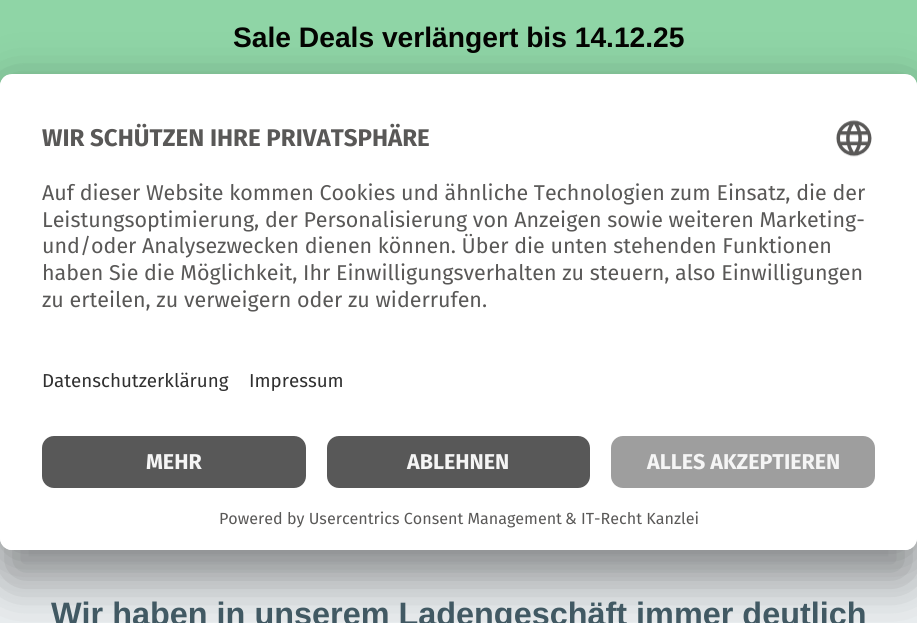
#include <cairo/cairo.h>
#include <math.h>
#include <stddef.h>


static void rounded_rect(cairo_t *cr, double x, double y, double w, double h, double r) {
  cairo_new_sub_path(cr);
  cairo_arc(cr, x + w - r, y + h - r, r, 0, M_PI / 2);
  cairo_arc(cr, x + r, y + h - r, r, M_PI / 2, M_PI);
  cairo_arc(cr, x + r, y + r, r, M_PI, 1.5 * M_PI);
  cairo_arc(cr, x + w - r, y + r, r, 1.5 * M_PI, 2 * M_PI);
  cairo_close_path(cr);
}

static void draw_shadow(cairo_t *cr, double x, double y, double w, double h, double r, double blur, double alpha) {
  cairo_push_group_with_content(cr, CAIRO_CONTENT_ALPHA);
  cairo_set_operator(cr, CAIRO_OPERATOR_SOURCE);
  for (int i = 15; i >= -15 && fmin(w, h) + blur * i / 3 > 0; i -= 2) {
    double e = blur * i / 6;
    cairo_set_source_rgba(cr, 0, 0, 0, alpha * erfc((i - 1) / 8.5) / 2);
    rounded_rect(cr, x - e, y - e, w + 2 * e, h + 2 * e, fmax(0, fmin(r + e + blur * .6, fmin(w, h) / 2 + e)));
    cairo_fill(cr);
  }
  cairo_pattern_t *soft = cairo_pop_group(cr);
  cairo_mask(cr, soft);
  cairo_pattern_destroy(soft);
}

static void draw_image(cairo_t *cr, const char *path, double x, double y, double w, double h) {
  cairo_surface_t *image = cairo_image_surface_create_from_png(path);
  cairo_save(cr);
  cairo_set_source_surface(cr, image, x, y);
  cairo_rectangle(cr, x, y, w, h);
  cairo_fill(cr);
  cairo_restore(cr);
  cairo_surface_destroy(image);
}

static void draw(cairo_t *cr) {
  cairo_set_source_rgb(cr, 235 / 255.0, 239 / 255.0, 241 / 255.0);
  cairo_paint(cr);
  cairo_set_source_rgb(cr, 143 / 255.0, 213 / 255.0, 166 / 255.0);
  cairo_rectangle(cr, 0, 0, 917, 86);
  cairo_fill(cr);
  cairo_set_source_rgb(cr, 0, 0, 0);
  draw_shadow(cr, 0, 109, 917, 476, 12, 24.5, 0.3);
  draw_shadow(cr, 0, 82, 917, 476, 12, 23, 0.22);
  cairo_set_source_rgb(cr, 1, 1, 1);
  rounded_rect(cr, 0, 74, 917, 476, 12);
  cairo_fill(cr);
  cairo_save(cr);
  rounded_rect(cr, 0, 74, 917, 476, 12);
  cairo_clip(cr);
  cairo_new_path(cr);
  cairo_move_to(cr, 12, 74);
  cairo_line_to(cr, 905, 74);
  cairo_curve_to(cr, 911.5, 74, 917, 79.5, 917, 86);
  cairo_line_to(cr, 917, 422);
  cairo_line_to(cr, 0, 422);
  cairo_line_to(cr, 0, 86);
  cairo_curve_to(cr, 0, 79.5, 5.5, 74, 12, 74);
  cairo_close_path(cr);
  cairo_clip(cr);
  cairo_rectangle(cr, 0, 75, 917, 347);
  cairo_fill(cr);
  cairo_restore(cr);
  draw_image(cr, "images/1.png", 836, 120, 36, 37);
  cairo_new_path(cr);
  cairo_move_to(cr, 0, 422);
  cairo_line_to(cr, 917, 422);
  cairo_line_to(cr, 917, 538);
  cairo_curve_to(cr, 917, 544.5, 911.5, 550, 905, 550);
  cairo_line_to(cr, 12, 550);
  cairo_curve_to(cr, 5.5, 550, 0, 544.5, 0, 538);
  cairo_close_path(cr);
  cairo_fill(cr);
  cairo_set_source_rgb(cr, 88 / 255.0, 88 / 255.0, 88 / 255.0);
  rounded_rect(cr, 42, 436, 264, 52, 12);
  cairo_fill(cr);
  rounded_rect(cr, 327, 436, 263, 52, 12);
  cairo_fill(cr);
  cairo_set_source_rgb(cr, 158 / 255.0, 158 / 255.0, 158 / 255.0);
  rounded_rect(cr, 611, 436, 264, 52, 12);
  cairo_fill(cr);
  cairo_select_font_face(cr, "Liberation Sans", CAIRO_FONT_SLANT_NORMAL, CAIRO_FONT_WEIGHT_BOLD);
  cairo_set_font_size(cr, 28.2);
  cairo_set_source_rgb(cr, 3 / 255.0, 3 / 255.0, 1 / 255.0);
  cairo_move_to(cr, 233, 47);
  cairo_show_text(cr, "Sale Deals verlängert bis 14.12.25");
  cairo_set_font_size(cr, 32.4);
  cairo_set_source_rgb(cr, 65 / 255.0, 89 / 255.0, 99 / 255.0);
  cairo_move_to(cr, 51, 625);
  cairo_show_text(cr, "Wir haben in unserem Ladengeschäft immer deutlich");
  cairo_select_font_face(cr, "Fira Sans", CAIRO_FONT_SLANT_NORMAL, CAIRO_FONT_WEIGHT_BOLD);
  cairo_set_font_size(cr, 24.1);
  cairo_set_source_rgb(cr, 89 / 255.0, 88 / 255.0, 87 / 255.0);
  cairo_move_to(cr, 42, 146);
  cairo_show_text(cr, "WIR SCHÜTZEN IHRE PRIVATSPHÄRE");
  cairo_select_font_face(cr, "Fira Sans", CAIRO_FONT_SLANT_NORMAL, CAIRO_FONT_WEIGHT_NORMAL);
  cairo_set_font_size(cr, 21.45);
  cairo_move_to(cr, 42, 200);
  cairo_show_text(cr, "Auf dieser Website kommen Cookies und ähnliche Technologien zum Einsatz, die der");
  cairo_move_to(cr, 42, 227);
  cairo_show_text(cr, "Leistungsoptimierung, der Personalisierung von Anzeigen sowie weiteren Marketing-");
  cairo_move_to(cr, 42, 253);
  cairo_show_text(cr, "und/oder Analysezwecken dienen können. Über die unten stehenden Funktionen");
  cairo_move_to(cr, 42, 280);
  cairo_show_text(cr, "haben Sie die Möglichkeit, Ihr Einwilligungsverhalten zu steuern, also Einwilligungen");
  cairo_move_to(cr, 42, 307);
  cairo_show_text(cr, "zu erteilen, zu verweigern oder zu widerrufen.");
  cairo_set_font_size(cr, 18.75);
  cairo_set_source_rgb(cr, 48 / 255.0, 48 / 255.0, 48 / 255.0);
  cairo_move_to(cr, 42, 387);
  cairo_show_text(cr, "Datenschutzerklärung");
  cairo_move_to(cr, 249, 387);
  cairo_show_text(cr, "Impressum");
  cairo_select_font_face(cr, "Fira Sans", CAIRO_FONT_SLANT_NORMAL, CAIRO_FONT_WEIGHT_BOLD);
  cairo_set_font_size(cr, 21.45);
  cairo_set_source_rgb(cr, 245 / 255.0, 245 / 255.0, 245 / 255.0);
  cairo_move_to(cr, 146, 469);
  cairo_show_text(cr, "MEHR");
  cairo_move_to(cr, 407, 469);
  cairo_show_text(cr, "ABLEHNEN");
  cairo_move_to(cr, 647, 469);
  cairo_show_text(cr, "ALLES AKZEPTIEREN");
  cairo_select_font_face(cr, "Fira Sans", CAIRO_FONT_SLANT_NORMAL, CAIRO_FONT_WEIGHT_NORMAL);
  cairo_set_font_size(cr, 16.1);
  cairo_set_source_rgb(cr, 89 / 255.0, 88 / 255.0, 87 / 255.0);
  cairo_move_to(cr, 219, 524);
  cairo_show_text(cr, "Powered by Usercentrics Consent Management");
  cairo_move_to(cr, 565, 524);
  cairo_show_text(cr, "& IT-Recht Kanzlei");
}

int main(void) {
  cairo_surface_t *surface = cairo_image_surface_create(CAIRO_FORMAT_RGB24, 917, 623);
  cairo_t *cr = cairo_create(surface);
  cairo_font_options_t *options = cairo_font_options_create();
  cairo_font_options_set_hint_metrics(options, CAIRO_HINT_METRICS_OFF);
  cairo_font_options_set_hint_style(options, CAIRO_HINT_STYLE_NONE);
  cairo_set_font_options(cr, options);
  cairo_set_miter_limit(cr, 4);
  draw(cr);
  cairo_surface_write_to_png(surface, "out.png");
  cairo_font_options_destroy(options);
  cairo_destroy(cr);
  cairo_surface_destroy(surface);
  return 0;
}
